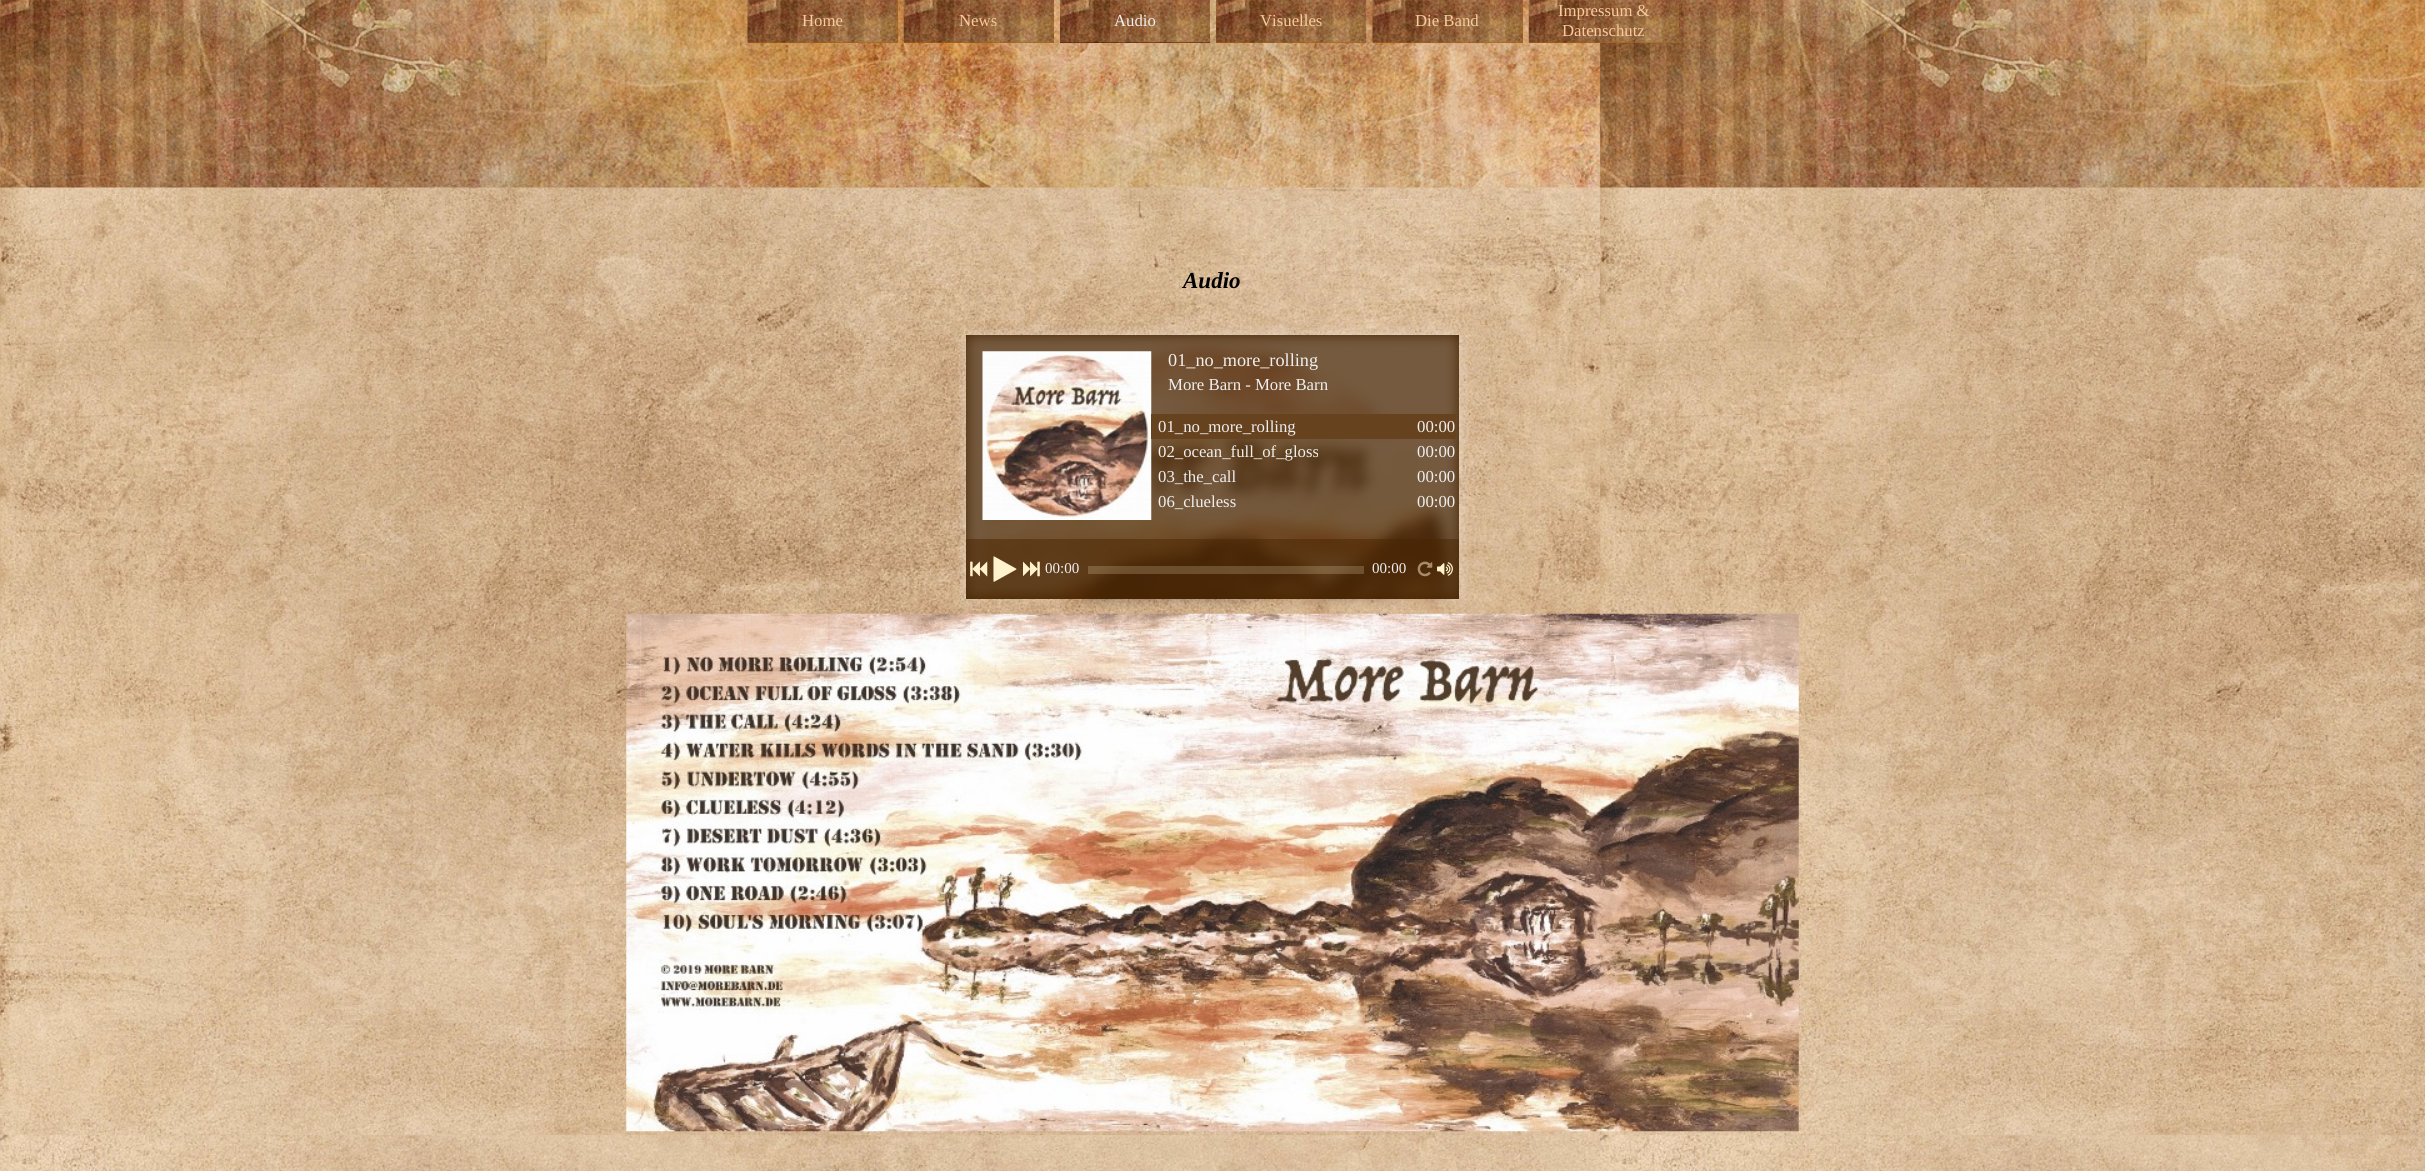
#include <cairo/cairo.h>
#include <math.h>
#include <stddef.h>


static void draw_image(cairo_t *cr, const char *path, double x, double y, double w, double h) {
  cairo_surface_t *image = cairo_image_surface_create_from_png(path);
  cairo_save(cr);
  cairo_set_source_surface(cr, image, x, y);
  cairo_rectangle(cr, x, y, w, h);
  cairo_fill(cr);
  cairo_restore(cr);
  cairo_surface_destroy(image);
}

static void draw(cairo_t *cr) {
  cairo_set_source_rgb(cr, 1, 1, 1);
  cairo_paint(cr);
  draw_image(cr, "images/1.png", 0, 187, 2425, 984);
  draw_image(cr, "images/2.png", 0, 0, 2425, 188);
  cairo_set_source_rgb(cr, 180 / 255.0, 95 / 255.0, 6 / 255.0);
  cairo_rectangle(cr, 748, 0, 150, 43);
  cairo_fill(cr);
  draw_image(cr, "images/3.png", 747, 0, 151, 43);
  cairo_rectangle(cr, 904, 0, 150, 43);
  cairo_fill(cr);
  draw_image(cr, "images/4.png", 903, 0, 151, 43);
  cairo_set_source_rgb(cr, 91 / 255.0, 15 / 255.0, 0);
  cairo_rectangle(cr, 1060, 42, 150, 1);
  cairo_fill(cr);
  draw_image(cr, "images/5.png", 1060, 0, 150, 43);
  cairo_set_source_rgb(cr, 180 / 255.0, 95 / 255.0, 6 / 255.0);
  cairo_rectangle(cr, 1216, 0, 150, 43);
  cairo_fill(cr);
  draw_image(cr, "images/6.png", 1216, 0, 151, 43);
  cairo_rectangle(cr, 1373, 0, 150, 43);
  cairo_fill(cr);
  draw_image(cr, "images/7.png", 1372, 0, 151, 43);
  cairo_rectangle(cr, 1529, 0, 150, 43);
  cairo_fill(cr);
  draw_image(cr, "images/8.png", 1528, 0, 151, 43);
  cairo_set_source_rgb(cr, 72 / 255.0, 36 / 255.0, 0);
  cairo_rectangle(cr, 966, 335, 493, 264);
  cairo_fill(cr);
  draw_image(cr, "images/9.png", 956, 325, 512, 284);
  cairo_set_source_rgba(cr, 72 / 255.0, 36 / 255.0, 0, 0.5);
  cairo_rectangle(cr, 966, 335, 493, 204);
  cairo_fill(cr);
  draw_image(cr, "images/10.png", 982, 351, 170, 169);
  cairo_set_source_rgb(cr, 102 / 255.0, 66 / 255.0, 30 / 255.0);
  cairo_rectangle(cr, 1151, 414, 305, 25);
  cairo_fill(cr);
  cairo_set_source_rgba(cr, 72 / 255.0, 36 / 255.0, 0, 0.75);
  cairo_rectangle(cr, 966, 539, 493, 60);
  cairo_fill(cr);
  draw_image(cr, "images/11.png", 970, 561, 18, 16);
  draw_image(cr, "images/12.png", 993, 556, 24, 26);
  draw_image(cr, "images/13.png", 1023, 561, 17, 16);
  cairo_set_source_rgba(cr, 1, 242 / 255.0, 204 / 255.0, 0.2);
  cairo_rectangle(cr, 1088, 566, 276, 8);
  cairo_fill(cr);
  draw_image(cr, "images/14.png", 1417, 561, 16, 16);
  draw_image(cr, "images/15.png", 1437, 562, 16, 14);
  draw_image(cr, "images/16.png", 626, 613, 1173, 519);
  cairo_select_font_face(cr, "Liberation Serif", CAIRO_FONT_SLANT_NORMAL, CAIRO_FONT_WEIGHT_NORMAL);
  cairo_set_font_size(cr, 16.75);
  cairo_set_source_rgb(cr, 249 / 255.0, 203 / 255.0, 156 / 255.0);
  cairo_move_to(cr, 802, 26);
  cairo_show_text(cr, "Home");
  cairo_move_to(cr, 959, 26);
  cairo_show_text(cr, "News");
  cairo_set_source_rgb(cr, 239 / 255.0, 239 / 255.0, 239 / 255.0);
  cairo_move_to(cr, 1114, 26);
  cairo_show_text(cr, "Audio");
  cairo_set_source_rgb(cr, 249 / 255.0, 203 / 255.0, 156 / 255.0);
  cairo_move_to(cr, 1260, 26);
  cairo_show_text(cr, "Visuelles");
  cairo_move_to(cr, 1415, 26);
  cairo_show_text(cr, "Die Band");
  cairo_move_to(cr, 1558, 16);
  cairo_show_text(cr, "Impressum &");
  cairo_move_to(cr, 1562, 36);
  cairo_show_text(cr, "Datenschutz");
  cairo_select_font_face(cr, "Liberation Serif", CAIRO_FONT_SLANT_ITALIC, CAIRO_FONT_WEIGHT_BOLD);
  cairo_set_font_size(cr, 23);
  cairo_set_source_rgb(cr, 0, 0, 0);
  cairo_move_to(cr, 1183, 288);
  cairo_show_text(cr, "Audio");
  cairo_select_font_face(cr, "Liberation Serif", CAIRO_FONT_SLANT_NORMAL, CAIRO_FONT_WEIGHT_NORMAL);
  cairo_set_font_size(cr, 18.25);
  cairo_set_source_rgb(cr, 239 / 255.0, 239 / 255.0, 239 / 255.0);
  cairo_move_to(cr, 1168, 366);
  cairo_show_text(cr, "01_no_more_rolling");
  cairo_set_font_size(cr, 16.75);
  cairo_move_to(cr, 1168, 390);
  cairo_show_text(cr, "More Barn - More Barn");
  cairo_move_to(cr, 1158, 432);
  cairo_show_text(cr, "01_no_more_rolling");
  cairo_move_to(cr, 1417, 432);
  cairo_show_text(cr, "00:00");
  cairo_move_to(cr, 1158, 457);
  cairo_show_text(cr, "02_ocean_full_of_gloss");
  cairo_move_to(cr, 1417, 457);
  cairo_show_text(cr, "00:00");
  cairo_move_to(cr, 1158, 482);
  cairo_show_text(cr, "03_the_call");
  cairo_move_to(cr, 1417, 482);
  cairo_show_text(cr, "00:00");
  cairo_move_to(cr, 1158, 507);
  cairo_show_text(cr, "06_clueless");
  cairo_move_to(cr, 1417, 507);
  cairo_show_text(cr, "00:00");
  cairo_set_font_size(cr, 15);
  cairo_move_to(cr, 1045, 573);
  cairo_show_text(cr, "00:00");
  cairo_move_to(cr, 1372, 573);
  cairo_show_text(cr, "00:00");
}

int main(void) {
  cairo_surface_t *surface = cairo_image_surface_create(CAIRO_FORMAT_RGB24, 2425, 1171);
  cairo_t *cr = cairo_create(surface);
  cairo_font_options_t *options = cairo_font_options_create();
  cairo_font_options_set_hint_metrics(options, CAIRO_HINT_METRICS_OFF);
  cairo_font_options_set_hint_style(options, CAIRO_HINT_STYLE_NONE);
  cairo_set_font_options(cr, options);
  cairo_set_miter_limit(cr, 4);
  draw(cr);
  cairo_surface_write_to_png(surface, "out.png");
  cairo_font_options_destroy(options);
  cairo_destroy(cr);
  cairo_surface_destroy(surface);
  return 0;
}
